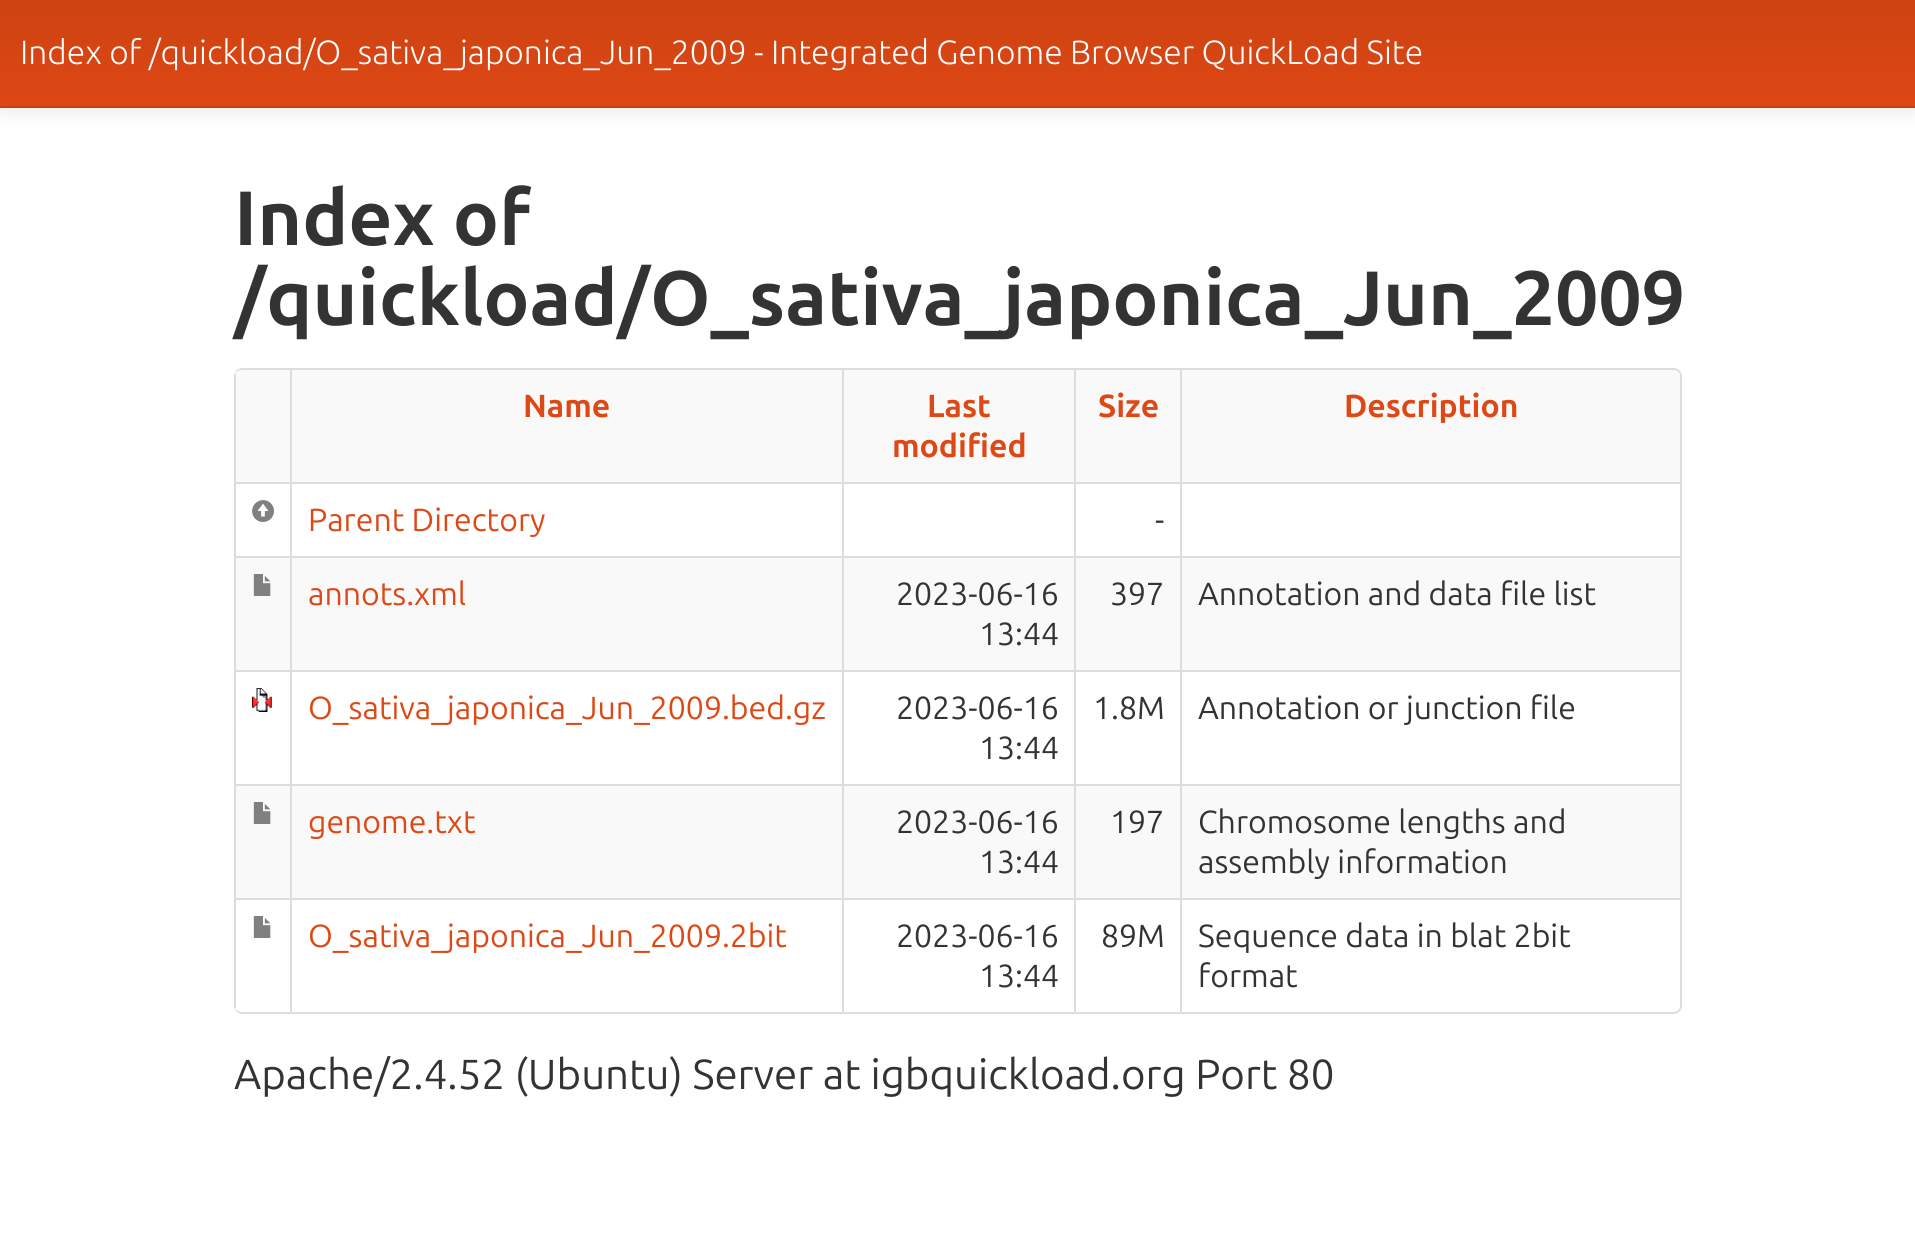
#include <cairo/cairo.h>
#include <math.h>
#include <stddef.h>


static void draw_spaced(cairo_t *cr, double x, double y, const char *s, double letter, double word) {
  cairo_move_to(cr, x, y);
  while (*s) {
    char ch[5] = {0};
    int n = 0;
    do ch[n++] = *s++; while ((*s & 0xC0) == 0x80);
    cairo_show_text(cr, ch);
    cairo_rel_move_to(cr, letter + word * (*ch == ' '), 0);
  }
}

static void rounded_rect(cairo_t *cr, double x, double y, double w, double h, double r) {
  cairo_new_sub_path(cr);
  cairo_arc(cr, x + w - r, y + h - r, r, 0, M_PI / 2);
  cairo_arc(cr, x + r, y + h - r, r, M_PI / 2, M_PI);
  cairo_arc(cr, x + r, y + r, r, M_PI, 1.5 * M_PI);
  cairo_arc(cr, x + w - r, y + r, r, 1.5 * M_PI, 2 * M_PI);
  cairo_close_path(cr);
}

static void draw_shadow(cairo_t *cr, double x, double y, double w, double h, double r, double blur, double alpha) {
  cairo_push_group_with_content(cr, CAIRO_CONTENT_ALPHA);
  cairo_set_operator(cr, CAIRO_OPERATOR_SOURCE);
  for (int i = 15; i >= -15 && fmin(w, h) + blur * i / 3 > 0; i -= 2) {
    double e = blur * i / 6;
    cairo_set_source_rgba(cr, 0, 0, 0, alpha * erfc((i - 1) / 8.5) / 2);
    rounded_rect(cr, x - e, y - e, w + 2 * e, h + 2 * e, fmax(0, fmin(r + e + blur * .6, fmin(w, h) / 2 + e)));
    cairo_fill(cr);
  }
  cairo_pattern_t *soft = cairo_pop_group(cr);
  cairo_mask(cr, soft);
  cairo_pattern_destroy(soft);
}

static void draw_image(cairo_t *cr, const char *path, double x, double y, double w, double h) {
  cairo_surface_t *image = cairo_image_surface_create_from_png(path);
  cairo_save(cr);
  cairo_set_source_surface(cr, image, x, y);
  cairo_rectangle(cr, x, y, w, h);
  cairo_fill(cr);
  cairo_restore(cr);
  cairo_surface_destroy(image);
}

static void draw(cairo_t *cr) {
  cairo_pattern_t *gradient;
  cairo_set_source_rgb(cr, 1, 1, 1);
  cairo_paint(cr);
  cairo_set_source_rgb(cr, 0, 0, 0);
  draw_shadow(cr, 0, 2, 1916, 108, 0, 10, 0.1);
  gradient = cairo_pattern_create_linear(958, 0, 958, 106);
  cairo_pattern_add_color_stop_rgba(gradient, 0, 206 / 255.0, 66 / 255.0, 19 / 255.0, 1);
  cairo_pattern_add_color_stop_rgba(gradient, 1, 221 / 255.0, 72 / 255.0, 20 / 255.0, 1);
  cairo_set_source(cr, gradient);
  cairo_pattern_destroy(gradient);
  cairo_rectangle(cr, 0, 0, 1915, 106);
  cairo_fill(cr);
  cairo_set_source_rgb(cr, 198 / 255.0, 64 / 255.0, 18 / 255.0);
  cairo_rectangle(cr, 0, 106, 1915, 2);
  cairo_fill(cr);
  cairo_set_source_rgb(cr, 221 / 255.0, 221 / 255.0, 221 / 255.0);
  cairo_set_fill_rule(cr, CAIRO_FILL_RULE_EVEN_ODD);
  cairo_new_path(cr);
  cairo_move_to(cr, 242, 368);
  cairo_line_to(cr, 1674, 368);
  cairo_curve_to(cr, 1678, 368, 1682, 372, 1682, 376);
  cairo_line_to(cr, 1682, 1006);
  cairo_curve_to(cr, 1682, 1010, 1678, 1014, 1674, 1014);
  cairo_line_to(cr, 242, 1014);
  cairo_curve_to(cr, 238, 1014, 234, 1010, 234, 1006);
  cairo_line_to(cr, 234, 376);
  cairo_curve_to(cr, 234, 372, 238, 368, 242, 368);
  cairo_close_path(cr);
  cairo_move_to(cr, 242, 370);
  cairo_line_to(cr, 1674, 370);
  cairo_curve_to(cr, 1677, 370, 1680, 373, 1680, 376);
  cairo_line_to(cr, 1680, 1006);
  cairo_curve_to(cr, 1680, 1009, 1677, 1012, 1674, 1012);
  cairo_line_to(cr, 242, 1012);
  cairo_curve_to(cr, 238, 1012, 234, 1009, 234, 1006);
  cairo_line_to(cr, 234, 376);
  cairo_curve_to(cr, 234, 373, 238, 370, 242, 370);
  cairo_close_path(cr);
  cairo_fill(cr);
  cairo_set_source_rgb(cr, 249 / 255.0, 249 / 255.0, 249 / 255.0);
  cairo_new_path(cr);
  cairo_move_to(cr, 242, 370);
  cairo_line_to(cr, 290, 370);
  cairo_line_to(cr, 290, 482);
  cairo_line_to(cr, 234, 482);
  cairo_line_to(cr, 234, 378);
  cairo_curve_to(cr, 234, 373.5, 237.5, 370, 242, 370);
  cairo_close_path(cr);
  cairo_fill(cr);
  cairo_set_source_rgb(cr, 221 / 255.0, 221 / 255.0, 221 / 255.0);
  cairo_rectangle(cr, 234, 374, 2, 108);
  cairo_fill(cr);
  cairo_set_source_rgb(cr, 249 / 255.0, 249 / 255.0, 249 / 255.0);
  cairo_rectangle(cr, 292, 370, 550, 112);
  cairo_fill(cr);
  cairo_set_source_rgb(cr, 221 / 255.0, 221 / 255.0, 221 / 255.0);
  cairo_rectangle(cr, 290, 370, 2, 112);
  cairo_fill(cr);
  cairo_set_source_rgb(cr, 249 / 255.0, 249 / 255.0, 249 / 255.0);
  cairo_rectangle(cr, 844, 370, 230, 112);
  cairo_fill(cr);
  cairo_set_source_rgb(cr, 221 / 255.0, 221 / 255.0, 221 / 255.0);
  cairo_rectangle(cr, 842, 370, 2, 112);
  cairo_fill(cr);
  cairo_set_source_rgb(cr, 249 / 255.0, 249 / 255.0, 249 / 255.0);
  cairo_rectangle(cr, 1076, 370, 104, 112);
  cairo_fill(cr);
  cairo_set_source_rgb(cr, 221 / 255.0, 221 / 255.0, 221 / 255.0);
  cairo_rectangle(cr, 1074, 370, 2, 112);
  cairo_fill(cr);
  cairo_set_source_rgb(cr, 249 / 255.0, 249 / 255.0, 249 / 255.0);
  cairo_new_path(cr);
  cairo_move_to(cr, 1180, 370);
  cairo_line_to(cr, 1672, 370);
  cairo_curve_to(cr, 1676.5, 370, 1680, 373.5, 1680, 378);
  cairo_line_to(cr, 1680, 482);
  cairo_line_to(cr, 1180, 482);
  cairo_close_path(cr);
  cairo_fill(cr);
  cairo_set_source_rgb(cr, 221 / 255.0, 221 / 255.0, 221 / 255.0);
  cairo_rectangle(cr, 1180, 370, 2, 112);
  cairo_fill(cr);
  cairo_rectangle(cr, 234, 482, 1446, 2);
  cairo_fill(cr);
  cairo_rectangle(cr, 234, 482, 2, 74);
  cairo_fill(cr);
  draw_image(cr, "images/1.png", 252, 500, 22, 22);
  cairo_rectangle(cr, 290, 482, 2, 74);
  cairo_fill(cr);
  cairo_rectangle(cr, 842, 482, 2, 74);
  cairo_fill(cr);
  cairo_rectangle(cr, 1074, 482, 2, 74);
  cairo_fill(cr);
  cairo_rectangle(cr, 1180, 482, 2, 74);
  cairo_fill(cr);
  cairo_set_source_rgb(cr, 249 / 255.0, 249 / 255.0, 249 / 255.0);
  cairo_rectangle(cr, 236, 558, 54, 112);
  cairo_fill(cr);
  cairo_set_source_rgb(cr, 221 / 255.0, 221 / 255.0, 221 / 255.0);
  cairo_rectangle(cr, 234, 556, 1446, 2);
  cairo_fill(cr);
  cairo_rectangle(cr, 234, 556, 2, 114);
  cairo_fill(cr);
  draw_image(cr, "images/2.png", 253, 574, 18, 22);
  cairo_set_source_rgb(cr, 249 / 255.0, 249 / 255.0, 249 / 255.0);
  cairo_rectangle(cr, 292, 558, 550, 112);
  cairo_fill(cr);
  cairo_set_source_rgb(cr, 221 / 255.0, 221 / 255.0, 221 / 255.0);
  cairo_rectangle(cr, 290, 556, 2, 114);
  cairo_fill(cr);
  cairo_set_source_rgb(cr, 249 / 255.0, 249 / 255.0, 249 / 255.0);
  cairo_rectangle(cr, 844, 558, 230, 112);
  cairo_fill(cr);
  cairo_set_source_rgb(cr, 221 / 255.0, 221 / 255.0, 221 / 255.0);
  cairo_rectangle(cr, 842, 556, 2, 114);
  cairo_fill(cr);
  cairo_set_source_rgb(cr, 249 / 255.0, 249 / 255.0, 249 / 255.0);
  cairo_rectangle(cr, 1076, 558, 104, 112);
  cairo_fill(cr);
  cairo_set_source_rgb(cr, 221 / 255.0, 221 / 255.0, 221 / 255.0);
  cairo_rectangle(cr, 1074, 556, 2, 114);
  cairo_fill(cr);
  cairo_set_source_rgb(cr, 249 / 255.0, 249 / 255.0, 249 / 255.0);
  cairo_rectangle(cr, 1182, 558, 498, 112);
  cairo_fill(cr);
  cairo_set_source_rgb(cr, 221 / 255.0, 221 / 255.0, 221 / 255.0);
  cairo_rectangle(cr, 1180, 556, 2, 114);
  cairo_fill(cr);
  cairo_rectangle(cr, 234, 670, 1446, 2);
  cairo_fill(cr);
  cairo_rectangle(cr, 234, 670, 2, 114);
  cairo_fill(cr);
  draw_image(cr, "images/3.png", 252, 688, 20, 24);
  cairo_rectangle(cr, 290, 670, 2, 114);
  cairo_fill(cr);
  cairo_rectangle(cr, 842, 670, 2, 114);
  cairo_fill(cr);
  cairo_rectangle(cr, 1074, 670, 2, 114);
  cairo_fill(cr);
  cairo_rectangle(cr, 1180, 670, 2, 114);
  cairo_fill(cr);
  cairo_set_source_rgb(cr, 249 / 255.0, 249 / 255.0, 249 / 255.0);
  cairo_rectangle(cr, 236, 786, 54, 112);
  cairo_fill(cr);
  cairo_set_source_rgb(cr, 221 / 255.0, 221 / 255.0, 221 / 255.0);
  cairo_rectangle(cr, 234, 784, 1446, 2);
  cairo_fill(cr);
  cairo_rectangle(cr, 234, 784, 2, 114);
  cairo_fill(cr);
  draw_image(cr, "images/2.png", 253, 802, 18, 22);
  cairo_set_source_rgb(cr, 249 / 255.0, 249 / 255.0, 249 / 255.0);
  cairo_rectangle(cr, 292, 786, 550, 112);
  cairo_fill(cr);
  cairo_set_source_rgb(cr, 221 / 255.0, 221 / 255.0, 221 / 255.0);
  cairo_rectangle(cr, 290, 784, 2, 114);
  cairo_fill(cr);
  cairo_set_source_rgb(cr, 249 / 255.0, 249 / 255.0, 249 / 255.0);
  cairo_rectangle(cr, 844, 786, 230, 112);
  cairo_fill(cr);
  cairo_set_source_rgb(cr, 221 / 255.0, 221 / 255.0, 221 / 255.0);
  cairo_rectangle(cr, 842, 784, 2, 114);
  cairo_fill(cr);
  cairo_set_source_rgb(cr, 249 / 255.0, 249 / 255.0, 249 / 255.0);
  cairo_rectangle(cr, 1076, 786, 104, 112);
  cairo_fill(cr);
  cairo_set_source_rgb(cr, 221 / 255.0, 221 / 255.0, 221 / 255.0);
  cairo_rectangle(cr, 1074, 784, 2, 114);
  cairo_fill(cr);
  cairo_set_source_rgb(cr, 249 / 255.0, 249 / 255.0, 249 / 255.0);
  cairo_rectangle(cr, 1182, 786, 498, 112);
  cairo_fill(cr);
  cairo_set_source_rgb(cr, 221 / 255.0, 221 / 255.0, 221 / 255.0);
  cairo_rectangle(cr, 1180, 784, 2, 114);
  cairo_fill(cr);
  cairo_rectangle(cr, 234, 898, 1446, 2);
  cairo_fill(cr);
  cairo_rectangle(cr, 234, 898, 2, 110);
  cairo_fill(cr);
  draw_image(cr, "images/4.png", 253, 916, 18, 22);
  cairo_rectangle(cr, 290, 898, 2, 114);
  cairo_fill(cr);
  cairo_rectangle(cr, 842, 898, 2, 114);
  cairo_fill(cr);
  cairo_rectangle(cr, 1074, 898, 2, 114);
  cairo_fill(cr);
  cairo_rectangle(cr, 1180, 898, 2, 114);
  cairo_fill(cr);
  cairo_select_font_face(cr, "Ubuntu Light", CAIRO_FONT_SLANT_NORMAL, CAIRO_FONT_WEIGHT_NORMAL);
  cairo_set_font_size(cr, 33.6);
  cairo_set_source_rgb(cr, 1, 1, 1);
  draw_spaced(cr, 20, 64, "Index of /quickload/O_sativa_japonica_Jun_2009 - Integrated Genome Browser QuickLoad Site", 0, -0.25);
  cairo_select_font_face(cr, "Ubuntu", CAIRO_FONT_SLANT_NORMAL, CAIRO_FONT_WEIGHT_BOLD);
  cairo_set_font_size(cr, 77);
  cairo_set_source_rgb(cr, 51 / 255.0, 51 / 255.0, 51 / 255.0);
  cairo_move_to(cr, 234, 245);
  cairo_show_text(cr, "Index of");
  cairo_move_to(cr, 234, 325);
  cairo_show_text(cr, "/quickload/O_sativa_japonica_Jun_2009");
  cairo_set_font_size(cr, 32);
  cairo_set_source_rgb(cr, 221 / 255.0, 72 / 255.0, 20 / 255.0);
  cairo_move_to(cr, 523, 417);
  cairo_show_text(cr, "Name");
  cairo_move_to(cr, 927, 417);
  cairo_show_text(cr, "Last");
  cairo_move_to(cr, 892, 457);
  cairo_show_text(cr, "modified");
  cairo_move_to(cr, 1098, 417);
  cairo_show_text(cr, "Size");
  cairo_move_to(cr, 1344, 417);
  cairo_show_text(cr, "Description");
  cairo_select_font_face(cr, "Ubuntu", CAIRO_FONT_SLANT_NORMAL, CAIRO_FONT_WEIGHT_NORMAL);
  cairo_move_to(cr, 308, 531);
  cairo_show_text(cr, "Parent Directory");
  cairo_set_source_rgb(cr, 51 / 255.0, 51 / 255.0, 51 / 255.0);
  cairo_move_to(cr, 1155, 531);
  cairo_show_text(cr, "-");
  cairo_set_source_rgb(cr, 221 / 255.0, 72 / 255.0, 20 / 255.0);
  cairo_move_to(cr, 308, 605);
  cairo_show_text(cr, "annots.xml");
  cairo_set_source_rgb(cr, 51 / 255.0, 51 / 255.0, 51 / 255.0);
  cairo_move_to(cr, 896, 605);
  cairo_show_text(cr, "2023-06-16");
  cairo_move_to(cr, 979, 645);
  cairo_show_text(cr, "13:44");
  cairo_move_to(cr, 1110, 605);
  cairo_show_text(cr, "397");
  cairo_move_to(cr, 1198, 605);
  cairo_show_text(cr, "Annotation and data file list");
  cairo_set_source_rgb(cr, 221 / 255.0, 72 / 255.0, 20 / 255.0);
  cairo_move_to(cr, 308, 719);
  cairo_show_text(cr, "O_sativa_japonica_Jun_2009.bed.gz");
  cairo_set_source_rgb(cr, 51 / 255.0, 51 / 255.0, 51 / 255.0);
  cairo_move_to(cr, 896, 719);
  cairo_show_text(cr, "2023-06-16");
  cairo_move_to(cr, 979, 759);
  cairo_show_text(cr, "13:44");
  cairo_move_to(cr, 1093, 719);
  cairo_show_text(cr, "1.8M");
  cairo_move_to(cr, 1198, 719);
  cairo_show_text(cr, "Annotation or junction file");
  cairo_set_source_rgb(cr, 221 / 255.0, 72 / 255.0, 20 / 255.0);
  cairo_move_to(cr, 308, 833);
  cairo_show_text(cr, "genome.txt");
  cairo_set_source_rgb(cr, 51 / 255.0, 51 / 255.0, 51 / 255.0);
  cairo_move_to(cr, 896, 833);
  cairo_show_text(cr, "2023-06-16");
  cairo_move_to(cr, 979, 873);
  cairo_show_text(cr, "13:44");
  cairo_move_to(cr, 1110, 833);
  cairo_show_text(cr, "197");
  cairo_move_to(cr, 1198, 833);
  cairo_show_text(cr, "Chromosome lengths and");
  cairo_move_to(cr, 1198, 873);
  cairo_show_text(cr, "assembly information");
  cairo_set_source_rgb(cr, 221 / 255.0, 72 / 255.0, 20 / 255.0);
  cairo_move_to(cr, 308, 947);
  cairo_show_text(cr, "O_sativa_japonica_Jun_2009.2bit");
  cairo_set_source_rgb(cr, 51 / 255.0, 51 / 255.0, 51 / 255.0);
  cairo_move_to(cr, 896, 947);
  cairo_show_text(cr, "2023-06-16");
  cairo_move_to(cr, 979, 987);
  cairo_show_text(cr, "13:44");
  cairo_move_to(cr, 1101, 947);
  cairo_show_text(cr, "89M");
  cairo_move_to(cr, 1198, 947);
  cairo_show_text(cr, "Sequence data in blat 2bit");
  cairo_move_to(cr, 1198, 987);
  cairo_show_text(cr, "format");
  cairo_set_font_size(cr, 42);
  cairo_move_to(cr, 234, 1089);
  cairo_show_text(cr, "Apache/2.4.52 (Ubuntu) Server at igbquickload.org Port 80");
}

int main(void) {
  cairo_surface_t *surface = cairo_image_surface_create(CAIRO_FORMAT_RGB24, 1915, 1254);
  cairo_t *cr = cairo_create(surface);
  cairo_font_options_t *options = cairo_font_options_create();
  cairo_font_options_set_hint_metrics(options, CAIRO_HINT_METRICS_OFF);
  cairo_font_options_set_hint_style(options, CAIRO_HINT_STYLE_NONE);
  cairo_set_font_options(cr, options);
  cairo_set_miter_limit(cr, 4);
  draw(cr);
  cairo_surface_write_to_png(surface, "out.png");
  cairo_font_options_destroy(options);
  cairo_destroy(cr);
  cairo_surface_destroy(surface);
  return 0;
}
